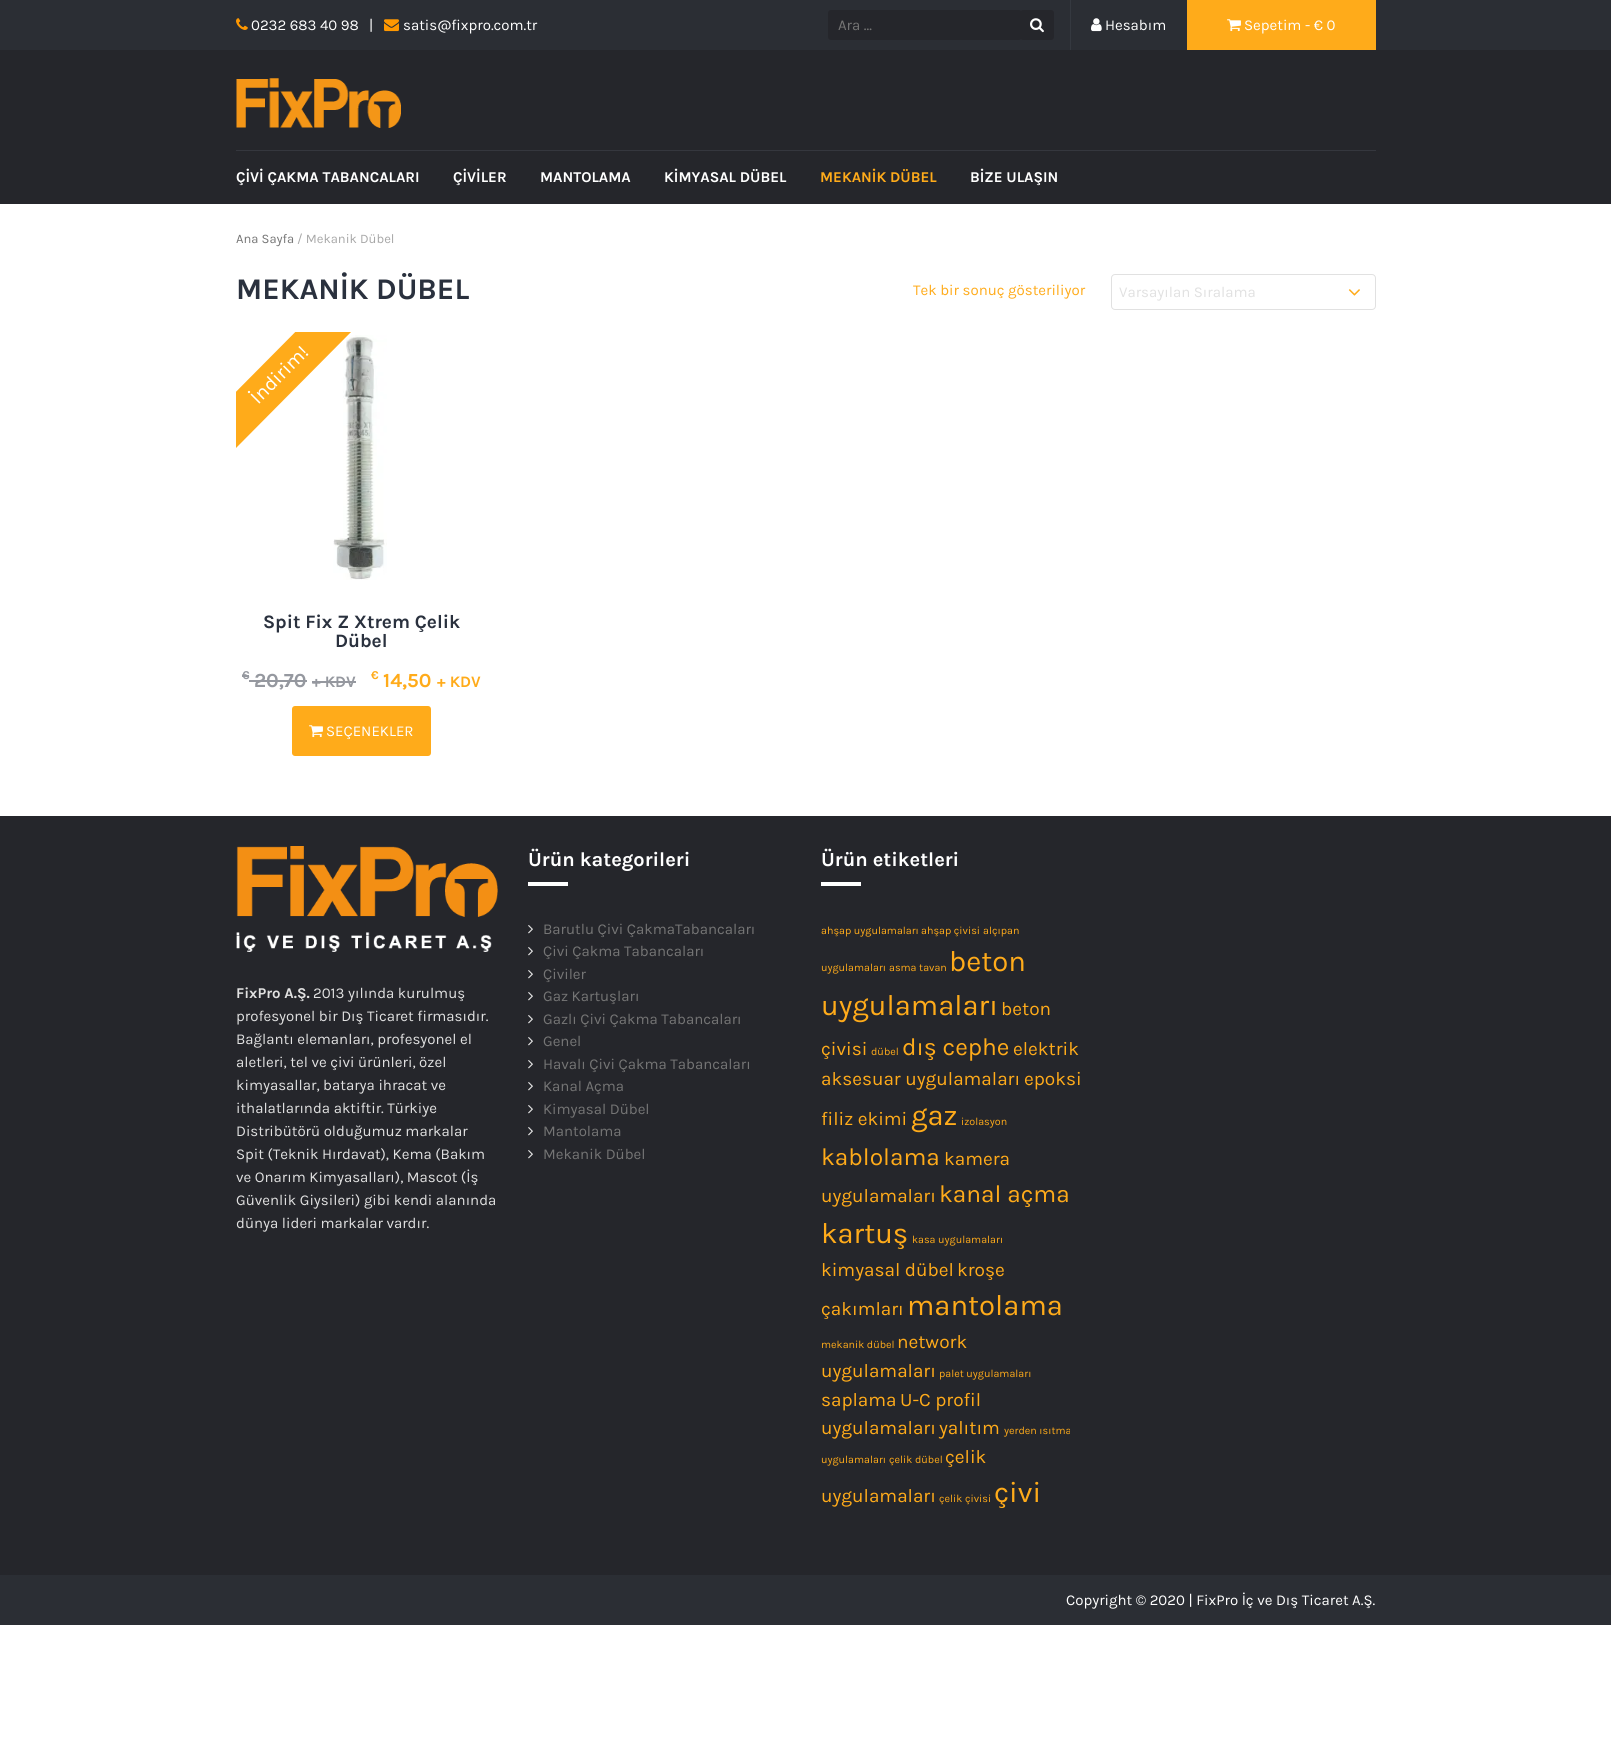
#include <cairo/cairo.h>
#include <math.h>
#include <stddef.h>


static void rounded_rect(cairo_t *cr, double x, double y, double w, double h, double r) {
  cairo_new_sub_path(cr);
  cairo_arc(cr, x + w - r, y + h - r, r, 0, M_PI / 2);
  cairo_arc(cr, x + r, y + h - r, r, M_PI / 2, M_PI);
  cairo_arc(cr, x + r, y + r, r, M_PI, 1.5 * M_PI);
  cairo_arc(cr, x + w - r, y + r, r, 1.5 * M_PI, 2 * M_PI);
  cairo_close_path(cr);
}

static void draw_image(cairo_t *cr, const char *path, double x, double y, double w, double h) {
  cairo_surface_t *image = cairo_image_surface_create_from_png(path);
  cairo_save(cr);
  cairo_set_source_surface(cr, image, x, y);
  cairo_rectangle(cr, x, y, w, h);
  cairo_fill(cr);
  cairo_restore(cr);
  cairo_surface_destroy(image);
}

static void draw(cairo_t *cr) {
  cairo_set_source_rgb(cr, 1, 1, 1);
  cairo_paint(cr);
  cairo_set_source_rgb(cr, 43 / 255.0, 46 / 255.0, 52 / 255.0);
  cairo_rectangle(cr, 0, 0, 1611, 50);
  cairo_fill(cr);
  draw_image(cr, "images/1.png", 236, 18, 12, 12);
  draw_image(cr, "images/2.png", 384, 19, 15, 13);
  cairo_set_source_rgb(cr, 37 / 255.0, 38 / 255.0, 43 / 255.0);
  rounded_rect(cr, 828, 10, 194, 30, 3);
  cairo_fill(cr);
  rounded_rect(cr, 1020, 10, 34, 30, 3);
  cairo_fill(cr);
  draw_image(cr, "images/3.png", 1030, 18, 14, 15);
  cairo_set_source_rgb(cr, 53 / 255.0, 57 / 255.0, 64 / 255.0);
  cairo_rectangle(cr, 1070, 0, 1, 50);
  cairo_fill(cr);
  draw_image(cr, "images/4.png", 1091, 18, 11, 14);
  cairo_set_source_rgb(cr, 1, 171 / 255.0, 26 / 255.0);
  cairo_rectangle(cr, 1187, 0, 189, 50);
  cairo_fill(cr);
  draw_image(cr, "images/5.png", 1227, 19, 14, 13);
  cairo_set_source_rgb(cr, 37 / 255.0, 38 / 255.0, 43 / 255.0);
  cairo_rectangle(cr, 0, 50, 1611, 154);
  cairo_fill(cr);
  draw_image(cr, "images/6.png", 236, 78, 165, 50);
  cairo_set_source_rgb(cr, 53 / 255.0, 55 / 255.0, 62 / 255.0);
  cairo_rectangle(cr, 236, 150, 1140, 1);
  cairo_fill(cr);
  draw_image(cr, "images/7.png", 1348, 289, 12, 7);
  rounded_rect(cr, 1111.5, 274.5, 264, 35, 3.5);
  cairo_set_source_rgb(cr, 225 / 255.0, 225 / 255.0, 225 / 255.0);
  cairo_set_line_width(cr, 1);
  cairo_stroke(cr);
  draw_image(cr, "images/8.png", 333, 335, 54, 245);
  cairo_save(cr);
  cairo_rectangle(cr, 236, 332, 251, 424);
  cairo_clip(cr);
  cairo_set_source_rgb(cr, 1, 171 / 255.0, 26 / 255.0);
  cairo_new_path(cr);
  cairo_move_to(cr, 208, 420);
  cairo_line_to(cr, 324, 303);
  cairo_line_to(cr, 352, 331);
  cairo_line_to(cr, 236, 448);
  cairo_close_path(cr);
  cairo_fill(cr);
  cairo_restore(cr);
  cairo_set_source_rgb(cr, 149 / 255.0, 152 / 255.0, 159 / 255.0);
  cairo_rectangle(cr, 242, 675, 7, 2);
  cairo_fill(cr);
  cairo_rectangle(cr, 249, 680, 58, 2);
  cairo_fill(cr);
  cairo_rectangle(cr, 312, 681, 44, 2);
  cairo_fill(cr);
  cairo_set_source_rgb(cr, 1, 171 / 255.0, 26 / 255.0);
  rounded_rect(cr, 293, 707, 137, 48, 2);
  cairo_fill_preserve(cr);
  cairo_set_line_width(cr, 2);
  cairo_stroke(cr);
  draw_image(cr, "images/5.png", 309, 725, 14, 13);
  cairo_set_source_rgb(cr, 37 / 255.0, 38 / 255.0, 43 / 255.0);
  cairo_rectangle(cr, 0, 816, 1611, 759);
  cairo_fill(cr);
  draw_image(cr, "images/9.png", 236, 846, 262, 106);
  cairo_set_source_rgb(cr, 1, 1, 1);
  cairo_rectangle(cr, 528, 882, 40, 4);
  cairo_fill(cr);
  draw_image(cr, "images/10.png", 528, 925, 5, 9);
  draw_image(cr, "images/10.png", 528, 947, 5, 9);
  draw_image(cr, "images/10.png", 528, 970, 5, 9);
  draw_image(cr, "images/10.png", 528, 992, 5, 9);
  draw_image(cr, "images/10.png", 528, 1015, 5, 9);
  draw_image(cr, "images/10.png", 528, 1037, 5, 9);
  draw_image(cr, "images/10.png", 528, 1060, 5, 9);
  draw_image(cr, "images/10.png", 528, 1082, 5, 9);
  draw_image(cr, "images/10.png", 528, 1105, 5, 9);
  draw_image(cr, "images/10.png", 528, 1127, 5, 9);
  draw_image(cr, "images/10.png", 528, 1150, 5, 9);
  cairo_rectangle(cr, 821, 882, 40, 4);
  cairo_fill(cr);
  cairo_set_source_rgb(cr, 43 / 255.0, 46 / 255.0, 52 / 255.0);
  cairo_rectangle(cr, 0, 1575, 1611, 50);
  cairo_fill(cr);
  cairo_select_font_face(cr, "Karla", CAIRO_FONT_SLANT_NORMAL, CAIRO_FONT_WEIGHT_NORMAL);
  cairo_set_font_size(cr, 15);
  cairo_set_source_rgb(cr, 1, 1, 1);
  cairo_move_to(cr, 251, 30);
  cairo_show_text(cr, "0232 683 40 98");
  cairo_move_to(cr, 369, 30);
  cairo_show_text(cr, "|");
  cairo_move_to(cr, 403, 30);
  cairo_show_text(cr, "satis@fixpro.com.tr");
  cairo_set_source_rgb(cr, 117 / 255.0, 117 / 255.0, 117 / 255.0);
  cairo_move_to(cr, 838, 30);
  cairo_show_text(cr, "Ara ...");
  cairo_set_source_rgb(cr, 1, 1, 1);
  cairo_move_to(cr, 1105, 30);
  cairo_show_text(cr, "Hesabım");
  cairo_move_to(cr, 1244, 30);
  cairo_show_text(cr, "Sepetim - € 0");
  cairo_select_font_face(cr, "Karla", CAIRO_FONT_SLANT_NORMAL, CAIRO_FONT_WEIGHT_BOLD);
  cairo_move_to(cr, 236, 182);
  cairo_show_text(cr, "ÇİVİ ÇAKMA TABANCALARI");
  cairo_move_to(cr, 453, 182);
  cairo_show_text(cr, "ÇİVİLER");
  cairo_move_to(cr, 540, 182);
  cairo_show_text(cr, "MANTOLAMA");
  cairo_move_to(cr, 664, 182);
  cairo_show_text(cr, "KİMYASAL DÜBEL");
  cairo_set_source_rgb(cr, 1, 171 / 255.0, 26 / 255.0);
  cairo_move_to(cr, 820, 182);
  cairo_show_text(cr, "MEKANİK DÜBEL");
  cairo_set_source_rgb(cr, 1, 1, 1);
  cairo_move_to(cr, 970, 182);
  cairo_show_text(cr, "BİZE ULAŞIN");
  cairo_select_font_face(cr, "Karla", CAIRO_FONT_SLANT_NORMAL, CAIRO_FONT_WEIGHT_NORMAL);
  cairo_set_font_size(cr, 13);
  cairo_set_source_rgb(cr, 117 / 255.0, 117 / 255.0, 117 / 255.0);
  cairo_move_to(cr, 236, 243);
  cairo_show_text(cr, "Ana Sayfa");
  cairo_set_source_rgb(cr, 167 / 255.0, 167 / 255.0, 167 / 255.0);
  cairo_move_to(cr, 297, 243);
  cairo_show_text(cr, "/ Mekanik Dübel");
  cairo_select_font_face(cr, "Karla", CAIRO_FONT_SLANT_NORMAL, CAIRO_FONT_WEIGHT_BOLD);
  cairo_set_font_size(cr, 30);
  cairo_set_source_rgb(cr, 42 / 255.0, 49 / 255.0, 62 / 255.0);
  cairo_move_to(cr, 236, 299);
  cairo_show_text(cr, "MEKANİK DÜBEL");
  cairo_select_font_face(cr, "Karla", CAIRO_FONT_SLANT_NORMAL, CAIRO_FONT_WEIGHT_NORMAL);
  cairo_set_font_size(cr, 15);
  cairo_set_source_rgb(cr, 1, 171 / 255.0, 26 / 255.0);
  cairo_move_to(cr, 913, 295);
  cairo_show_text(cr, "Tek bir sonuç gösteriliyor");
  cairo_set_source_rgb(cr, 225 / 255.0, 225 / 255.0, 225 / 255.0);
  cairo_move_to(cr, 1119, 297);
  cairo_show_text(cr, "Varsayılan Sıralama");
  cairo_set_font_size(cr, 20);
  cairo_set_source_rgb(cr, 1, 1, 1);
  cairo_save(cr);
  cairo_translate(cr, 258, 405);
  cairo_rotate(cr, -45 * M_PI / 180);
  cairo_move_to(cr, 0, 0);
  cairo_show_text(cr, "İndirim!");
  cairo_restore(cr);
  cairo_select_font_face(cr, "Karla", CAIRO_FONT_SLANT_NORMAL, CAIRO_FONT_WEIGHT_BOLD);
  cairo_set_font_size(cr, 19);
  cairo_set_source_rgb(cr, 42 / 255.0, 49 / 255.0, 62 / 255.0);
  cairo_move_to(cr, 263, 628);
  cairo_show_text(cr, "Spit Fix Z Xtrem Çelik");
  cairo_move_to(cr, 335, 647);
  cairo_show_text(cr, "Dübel");
  cairo_set_font_size(cr, 12);
  cairo_set_source_rgb(cr, 149 / 255.0, 152 / 255.0, 159 / 255.0);
  cairo_move_to(cr, 242, 679);
  cairo_show_text(cr, "€");
  cairo_set_font_size(cr, 20);
  cairo_move_to(cr, 254, 687);
  cairo_show_text(cr, "20,70");
  cairo_set_font_size(cr, 16);
  cairo_move_to(cr, 312, 687);
  cairo_show_text(cr, "+ KDV");
  cairo_set_font_size(cr, 12);
  cairo_set_source_rgb(cr, 1, 171 / 255.0, 26 / 255.0);
  cairo_move_to(cr, 371, 679);
  cairo_show_text(cr, "€");
  cairo_set_font_size(cr, 20);
  cairo_move_to(cr, 383, 687);
  cairo_show_text(cr, "14,50");
  cairo_set_font_size(cr, 16);
  cairo_move_to(cr, 437, 687);
  cairo_show_text(cr, "+ KDV");
  cairo_select_font_face(cr, "Karla", CAIRO_FONT_SLANT_NORMAL, CAIRO_FONT_WEIGHT_NORMAL);
  cairo_set_font_size(cr, 15);
  cairo_set_source_rgb(cr, 1, 1, 1);
  cairo_move_to(cr, 326, 736);
  cairo_show_text(cr, "SEÇENEKLER");
  cairo_select_font_face(cr, "Karla", CAIRO_FONT_SLANT_NORMAL, CAIRO_FONT_WEIGHT_BOLD);
  cairo_set_source_rgb(cr, 225 / 255.0, 225 / 255.0, 225 / 255.0);
  cairo_move_to(cr, 236, 998);
  cairo_show_text(cr, "FixPro A.Ş.");
  cairo_select_font_face(cr, "Karla", CAIRO_FONT_SLANT_NORMAL, CAIRO_FONT_WEIGHT_NORMAL);
  cairo_move_to(cr, 313, 998);
  cairo_show_text(cr, "2013 yılında kurulmuş");
  cairo_move_to(cr, 236, 1021);
  cairo_show_text(cr, "profesyonel bir Dış Ticaret firmasıdır.");
  cairo_move_to(cr, 236, 1044);
  cairo_show_text(cr, "Bağlantı elemanları, profesyonel el");
  cairo_move_to(cr, 236, 1067);
  cairo_show_text(cr, "aletleri, tel ve çivi ürünleri, özel");
  cairo_move_to(cr, 236, 1090);
  cairo_show_text(cr, "kimyasallar, batarya ihracat ve");
  cairo_move_to(cr, 236, 1113);
  cairo_show_text(cr, "ithalatlarında aktiftir. Türkiye");
  cairo_move_to(cr, 236, 1136);
  cairo_show_text(cr, "Distribütörü olduğumuz markalar");
  cairo_move_to(cr, 236, 1159);
  cairo_show_text(cr, "Spit (Teknik Hırdavat), Kema (Bakım");
  cairo_move_to(cr, 236, 1182);
  cairo_show_text(cr, "ve Onarım Kimyasalları), Mascot (İş");
  cairo_move_to(cr, 236, 1205);
  cairo_show_text(cr, "Güvenlik Giysileri) gibi kendi alanında");
  cairo_move_to(cr, 236, 1228);
  cairo_show_text(cr, "dünya lideri markalar vardır.");
  cairo_select_font_face(cr, "Karla", CAIRO_FONT_SLANT_NORMAL, CAIRO_FONT_WEIGHT_BOLD);
  cairo_set_font_size(cr, 20);
  cairo_set_source_rgb(cr, 1, 1, 1);
  cairo_move_to(cr, 528, 866);
  cairo_show_text(cr, "Ürün kategorileri");
  cairo_select_font_face(cr, "Karla", CAIRO_FONT_SLANT_NORMAL, CAIRO_FONT_WEIGHT_NORMAL);
  cairo_set_font_size(cr, 15);
  cairo_set_source_rgb(cr, 117 / 255.0, 117 / 255.0, 117 / 255.0);
  cairo_move_to(cr, 543, 934);
  cairo_show_text(cr, "Barutlu Çivi ÇakmaTabancaları");
  cairo_move_to(cr, 543, 956);
  cairo_show_text(cr, "Çivi Çakma Tabancaları");
  cairo_move_to(cr, 543, 979);
  cairo_show_text(cr, "Çiviler");
  cairo_move_to(cr, 543, 1001);
  cairo_show_text(cr, "Gaz Kartuşları");
  cairo_move_to(cr, 543, 1024);
  cairo_show_text(cr, "Gazlı Çivi Çakma Tabancaları");
  cairo_move_to(cr, 543, 1046);
  cairo_show_text(cr, "Genel");
  cairo_move_to(cr, 543, 1069);
  cairo_show_text(cr, "Havalı Çivi Çakma Tabancaları");
  cairo_move_to(cr, 543, 1091);
  cairo_show_text(cr, "Kanal Açma");
  cairo_move_to(cr, 543, 1114);
  cairo_show_text(cr, "Kimyasal Dübel");
  cairo_move_to(cr, 543, 1136);
  cairo_show_text(cr, "Mantolama");
  cairo_move_to(cr, 543, 1159);
  cairo_show_text(cr, "Mekanik Dübel");
  cairo_select_font_face(cr, "Karla", CAIRO_FONT_SLANT_NORMAL, CAIRO_FONT_WEIGHT_BOLD);
  cairo_set_font_size(cr, 20);
  cairo_set_source_rgb(cr, 1, 1, 1);
  cairo_move_to(cr, 821, 866);
  cairo_show_text(cr, "Ürün etiketleri");
  cairo_select_font_face(cr, "Karla", CAIRO_FONT_SLANT_NORMAL, CAIRO_FONT_WEIGHT_NORMAL);
  cairo_set_font_size(cr, 10.75);
  cairo_set_source_rgb(cr, 1, 171 / 255.0, 26 / 255.0);
  cairo_move_to(cr, 821, 934);
  cairo_show_text(cr, "ahşap uygulamaları");
  cairo_move_to(cr, 921, 934);
  cairo_show_text(cr, "ahşap çivisi");
  cairo_move_to(cr, 983, 934);
  cairo_show_text(cr, "alçıpan");
  cairo_move_to(cr, 821, 971);
  cairo_show_text(cr, "uygulamaları");
  cairo_move_to(cr, 889, 971);
  cairo_show_text(cr, "asma tavan");
  cairo_set_font_size(cr, 29.25);
  cairo_move_to(cr, 949, 971);
  cairo_show_text(cr, "beton");
  cairo_move_to(cr, 821, 1015);
  cairo_show_text(cr, "uygulamaları");
  cairo_set_font_size(cr, 19);
  cairo_move_to(cr, 1001, 1015);
  cairo_show_text(cr, "beton");
  cairo_move_to(cr, 821, 1055);
  cairo_show_text(cr, "çivisi");
  cairo_set_font_size(cr, 10.75);
  cairo_move_to(cr, 871, 1055);
  cairo_show_text(cr, "dübel");
  cairo_set_font_size(cr, 24.5);
  cairo_move_to(cr, 902, 1055);
  cairo_show_text(cr, "dış cephe");
  cairo_set_font_size(cr, 19);
  cairo_move_to(cr, 1013, 1055);
  cairo_show_text(cr, "elektrik");
  cairo_move_to(cr, 821, 1085);
  cairo_show_text(cr, "aksesuar uygulamaları");
  cairo_move_to(cr, 1024, 1085);
  cairo_show_text(cr, "epoksi");
  cairo_move_to(cr, 821, 1125);
  cairo_show_text(cr, "filiz ekimi");
  cairo_set_font_size(cr, 29.25);
  cairo_move_to(cr, 911, 1125);
  cairo_show_text(cr, "gaz");
  cairo_set_font_size(cr, 10.75);
  cairo_move_to(cr, 961, 1125);
  cairo_show_text(cr, "izolasyon");
  cairo_set_font_size(cr, 24.5);
  cairo_move_to(cr, 821, 1165);
  cairo_show_text(cr, "kablolama");
  cairo_set_font_size(cr, 19);
  cairo_move_to(cr, 944, 1165);
  cairo_show_text(cr, "kamera");
  cairo_move_to(cr, 821, 1202);
  cairo_show_text(cr, "uygulamaları");
  cairo_set_font_size(cr, 24.5);
  cairo_move_to(cr, 939, 1202);
  cairo_show_text(cr, "kanal açma");
  cairo_set_font_size(cr, 29.25);
  cairo_move_to(cr, 821, 1243);
  cairo_show_text(cr, "kartuş");
  cairo_set_font_size(cr, 10.75);
  cairo_move_to(cr, 912, 1243);
  cairo_show_text(cr, "kasa uygulamaları");
  cairo_set_font_size(cr, 19);
  cairo_move_to(cr, 821, 1276);
  cairo_show_text(cr, "kimyasal dübel");
  cairo_move_to(cr, 957, 1276);
  cairo_show_text(cr, "kroşe");
  cairo_move_to(cr, 821, 1315);
  cairo_show_text(cr, "çakımları");
  cairo_set_font_size(cr, 29.25);
  cairo_move_to(cr, 907, 1315);
  cairo_show_text(cr, "mantolama");
  cairo_set_font_size(cr, 10.75);
  cairo_move_to(cr, 821, 1348);
  cairo_show_text(cr, "mekanik dübel");
  cairo_set_font_size(cr, 19);
  cairo_move_to(cr, 897, 1348);
  cairo_show_text(cr, "network");
  cairo_move_to(cr, 821, 1377);
  cairo_show_text(cr, "uygulamaları");
  cairo_set_font_size(cr, 10.75);
  cairo_move_to(cr, 939, 1377);
  cairo_show_text(cr, "palet uygulamaları");
  cairo_set_font_size(cr, 19);
  cairo_move_to(cr, 821, 1406);
  cairo_show_text(cr, "saplama");
  cairo_move_to(cr, 900, 1406);
  cairo_show_text(cr, "U-C profil");
  cairo_move_to(cr, 821, 1434);
  cairo_show_text(cr, "uygulamaları");
  cairo_move_to(cr, 939, 1434);
  cairo_show_text(cr, "yalıtım");
  cairo_set_font_size(cr, 10.75);
  cairo_move_to(cr, 1004, 1434);
  cairo_show_text(cr, "yerden ısıtma");
  cairo_move_to(cr, 821, 1463);
  cairo_show_text(cr, "uygulamaları");
  cairo_move_to(cr, 889, 1463);
  cairo_show_text(cr, "çelik dübel");
  cairo_set_font_size(cr, 19);
  cairo_move_to(cr, 945, 1463);
  cairo_show_text(cr, "çelik");
  cairo_move_to(cr, 821, 1502);
  cairo_show_text(cr, "uygulamaları");
  cairo_set_font_size(cr, 10.75);
  cairo_move_to(cr, 939, 1502);
  cairo_show_text(cr, "çelik çivisi");
  cairo_set_font_size(cr, 29.25);
  cairo_move_to(cr, 994, 1502);
  cairo_show_text(cr, "çivi");
  cairo_set_font_size(cr, 15);
  cairo_set_source_rgb(cr, 1, 1, 1);
  cairo_move_to(cr, 1066, 1605);
  cairo_show_text(cr, "Copyright © 2020 | FixPro İç ve Dış Ticaret A.Ş.");
}

int main(void) {
  cairo_surface_t *surface = cairo_image_surface_create(CAIRO_FORMAT_RGB24, 1611, 1757);
  cairo_t *cr = cairo_create(surface);
  cairo_font_options_t *options = cairo_font_options_create();
  cairo_font_options_set_hint_metrics(options, CAIRO_HINT_METRICS_OFF);
  cairo_font_options_set_hint_style(options, CAIRO_HINT_STYLE_NONE);
  cairo_set_font_options(cr, options);
  cairo_set_miter_limit(cr, 4);
  draw(cr);
  cairo_surface_write_to_png(surface, "out.png");
  cairo_font_options_destroy(options);
  cairo_destroy(cr);
  cairo_surface_destroy(surface);
  return 0;
}
